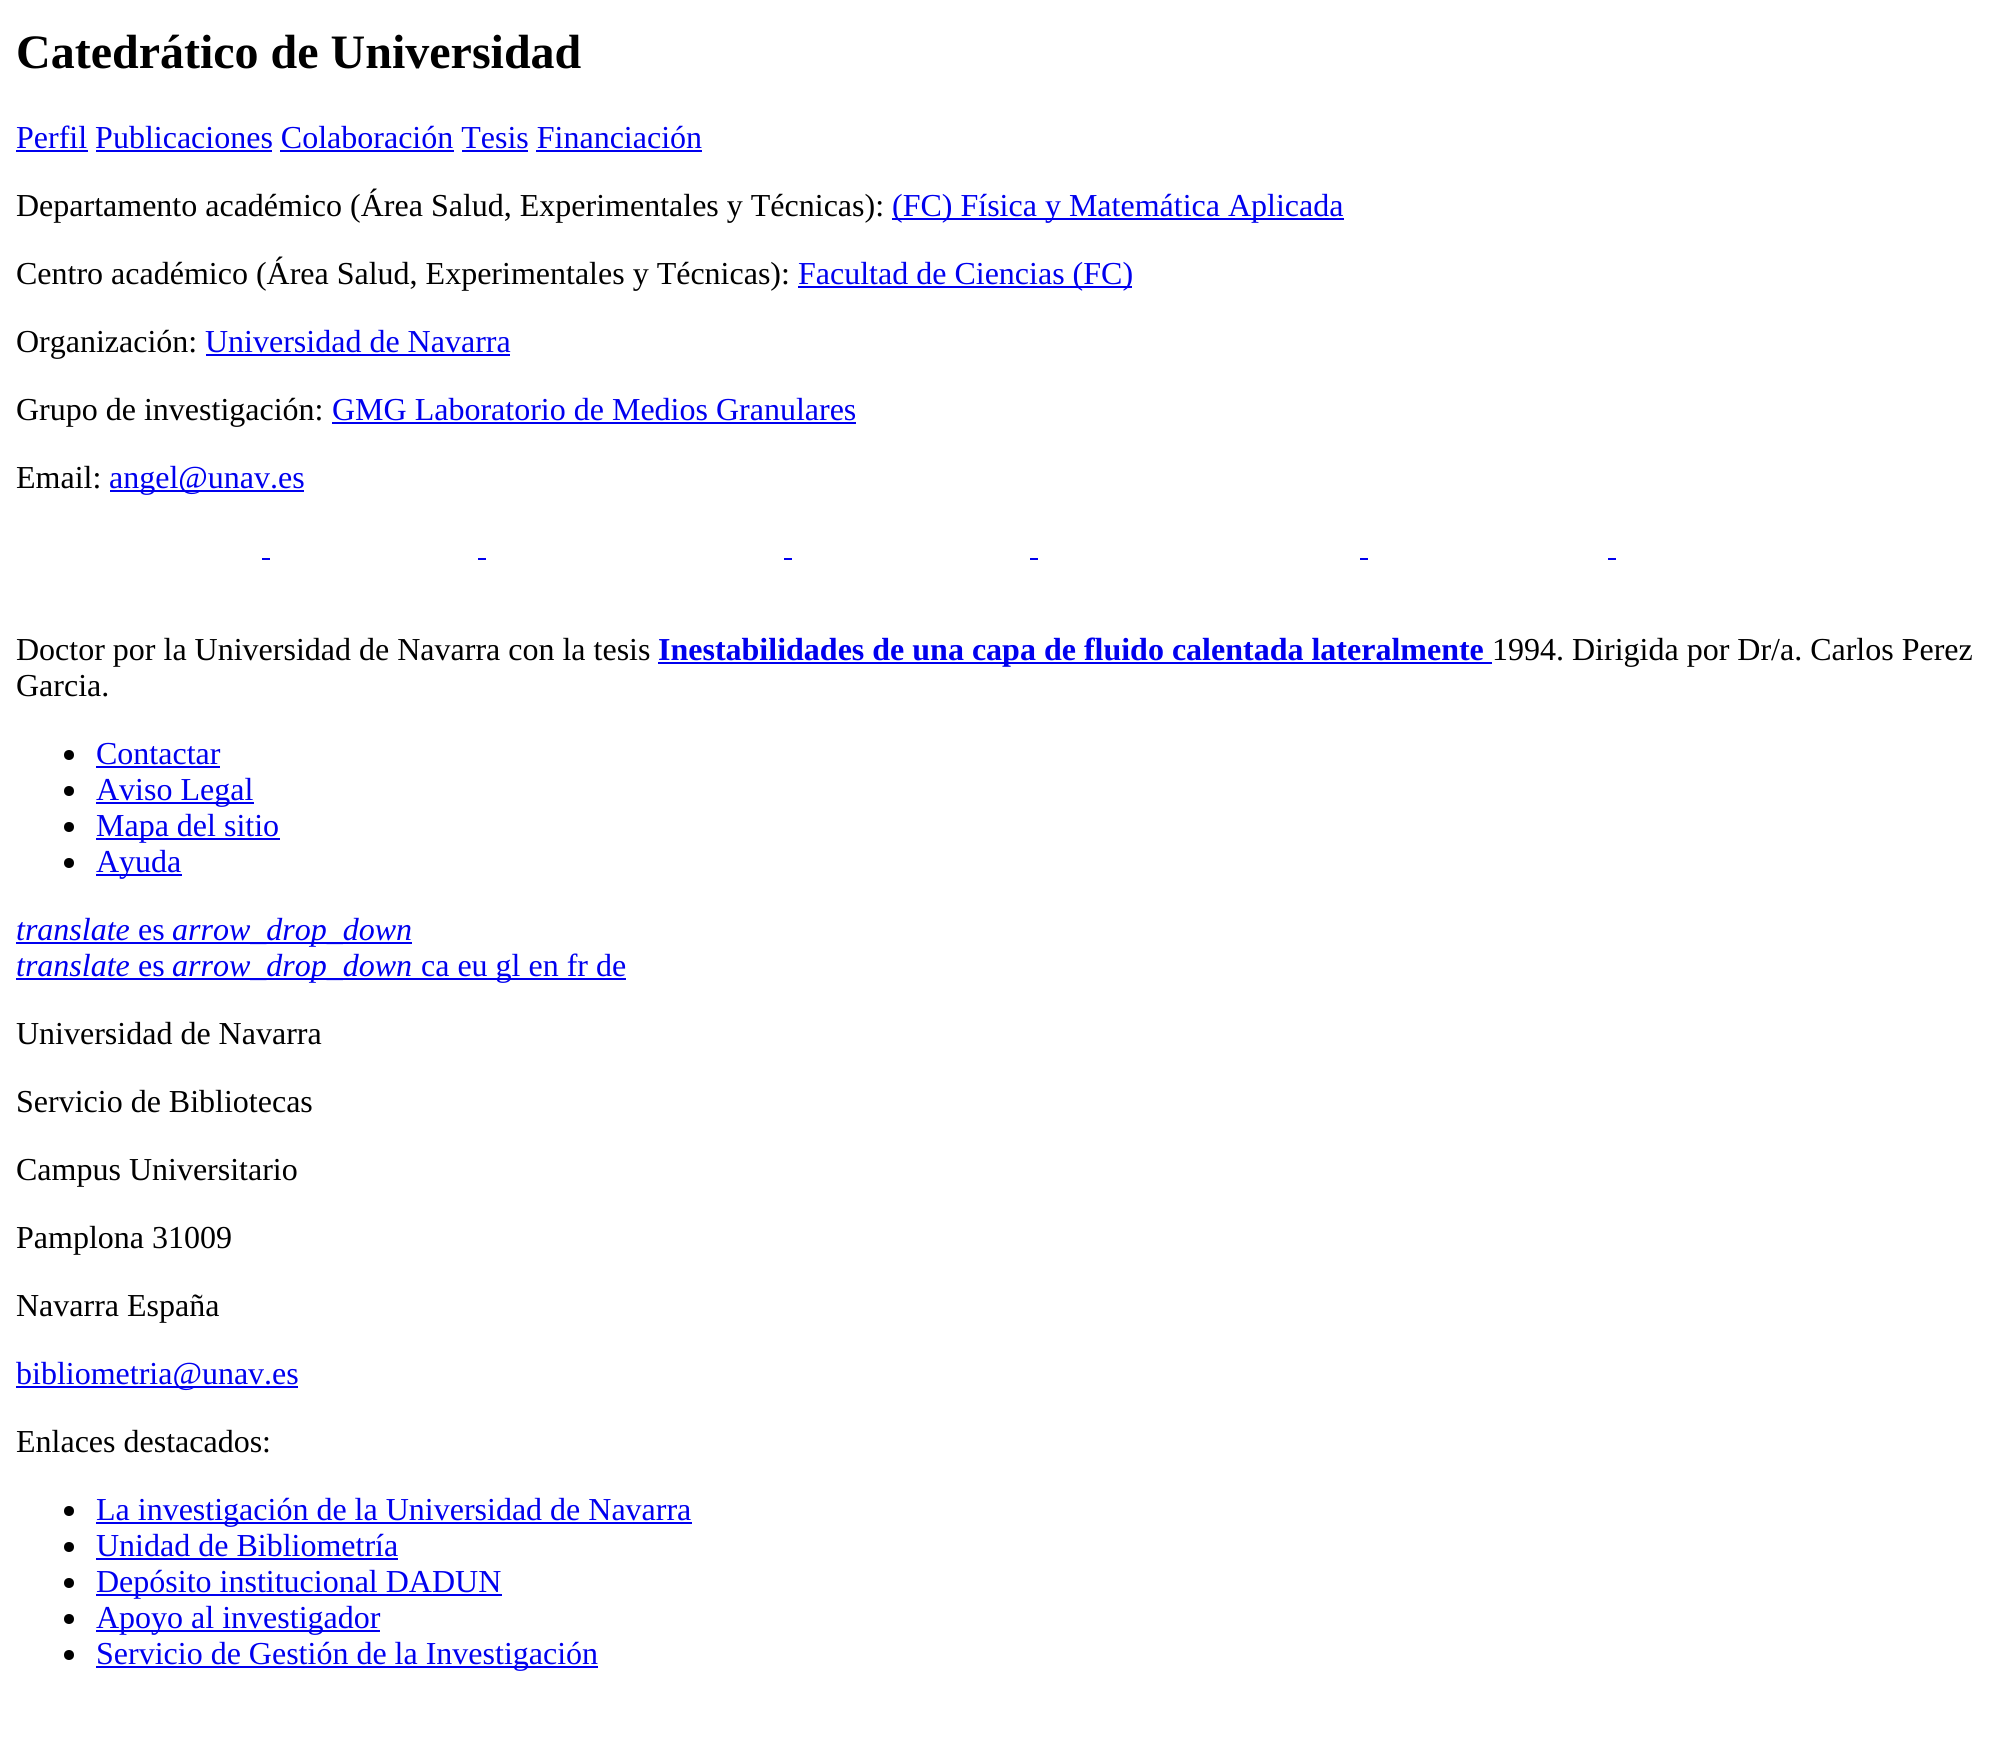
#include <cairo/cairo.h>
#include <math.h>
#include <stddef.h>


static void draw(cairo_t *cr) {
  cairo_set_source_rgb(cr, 1, 1, 1);
  cairo_paint(cr);
  cairo_set_source_rgb(cr, 0, 0, 238 / 255.0);
  cairo_rectangle(cr, 16, 150, 72, 2);
  cairo_fill(cr);
  cairo_rectangle(cr, 96, 150, 176, 2);
  cairo_fill(cr);
  cairo_rectangle(cr, 280, 150, 174, 2);
  cairo_fill(cr);
  cairo_rectangle(cr, 462, 150, 66, 2);
  cairo_fill(cr);
  cairo_rectangle(cr, 536, 150, 166, 2);
  cairo_fill(cr);
  cairo_rectangle(cr, 892, 218, 452, 2);
  cairo_fill(cr);
  cairo_rectangle(cr, 798, 286, 334, 2);
  cairo_fill(cr);
  cairo_rectangle(cr, 206, 354, 304, 2);
  cairo_fill(cr);
  cairo_rectangle(cr, 332, 422, 524, 2);
  cairo_fill(cr);
  cairo_rectangle(cr, 110, 490, 194, 2);
  cairo_fill(cr);
  cairo_rectangle(cr, 262, 558, 8, 2);
  cairo_fill(cr);
  cairo_rectangle(cr, 478, 558, 8, 2);
  cairo_fill(cr);
  cairo_rectangle(cr, 784, 558, 8, 2);
  cairo_fill(cr);
  cairo_rectangle(cr, 1030, 558, 8, 2);
  cairo_fill(cr);
  cairo_rectangle(cr, 1360, 558, 8, 2);
  cairo_fill(cr);
  cairo_rectangle(cr, 1608, 558, 8, 2);
  cairo_fill(cr);
  cairo_rectangle(cr, 658, 662, 834, 2);
  cairo_fill(cr);
  cairo_set_source_rgb(cr, 0, 0, 0);
  cairo_arc(cr, 69, 755, 5, 0, 2 * M_PI);
  cairo_fill(cr);
  cairo_set_source_rgb(cr, 0, 0, 238 / 255.0);
  cairo_rectangle(cr, 96, 766, 124, 2);
  cairo_fill(cr);
  cairo_set_source_rgb(cr, 0, 0, 0);
  cairo_arc(cr, 69, 791, 5, 0, 2 * M_PI);
  cairo_fill(cr);
  cairo_set_source_rgb(cr, 0, 0, 238 / 255.0);
  cairo_rectangle(cr, 96, 802, 158, 2);
  cairo_fill(cr);
  cairo_set_source_rgb(cr, 0, 0, 0);
  cairo_arc(cr, 69, 827, 5, 0, 2 * M_PI);
  cairo_fill(cr);
  cairo_set_source_rgb(cr, 0, 0, 238 / 255.0);
  cairo_rectangle(cr, 96, 838, 184, 2);
  cairo_fill(cr);
  cairo_set_source_rgb(cr, 0, 0, 0);
  cairo_arc(cr, 69, 863, 5, 0, 2 * M_PI);
  cairo_fill(cr);
  cairo_set_source_rgb(cr, 0, 0, 238 / 255.0);
  cairo_rectangle(cr, 96, 874, 86, 2);
  cairo_fill(cr);
  cairo_rectangle(cr, 16, 942, 396, 2);
  cairo_fill(cr);
  cairo_rectangle(cr, 16, 978, 610, 2);
  cairo_fill(cr);
  cairo_rectangle(cr, 16, 1386, 282, 2);
  cairo_fill(cr);
  cairo_set_source_rgb(cr, 0, 0, 0);
  cairo_arc(cr, 69, 1511, 5, 0, 2 * M_PI);
  cairo_fill(cr);
  cairo_set_source_rgb(cr, 0, 0, 238 / 255.0);
  cairo_rectangle(cr, 96, 1522, 596, 2);
  cairo_fill(cr);
  cairo_set_source_rgb(cr, 0, 0, 0);
  cairo_arc(cr, 69, 1547, 5, 0, 2 * M_PI);
  cairo_fill(cr);
  cairo_set_source_rgb(cr, 0, 0, 238 / 255.0);
  cairo_rectangle(cr, 96, 1558, 302, 2);
  cairo_fill(cr);
  cairo_set_source_rgb(cr, 0, 0, 0);
  cairo_arc(cr, 69, 1583, 5, 0, 2 * M_PI);
  cairo_fill(cr);
  cairo_set_source_rgb(cr, 0, 0, 238 / 255.0);
  cairo_rectangle(cr, 96, 1594, 406, 2);
  cairo_fill(cr);
  cairo_set_source_rgb(cr, 0, 0, 0);
  cairo_arc(cr, 69, 1619, 5, 0, 2 * M_PI);
  cairo_fill(cr);
  cairo_set_source_rgb(cr, 0, 0, 238 / 255.0);
  cairo_rectangle(cr, 96, 1630, 284, 2);
  cairo_fill(cr);
  cairo_set_source_rgb(cr, 0, 0, 0);
  cairo_arc(cr, 69, 1655, 5, 0, 2 * M_PI);
  cairo_fill(cr);
  cairo_set_source_rgb(cr, 0, 0, 238 / 255.0);
  cairo_rectangle(cr, 96, 1666, 502, 2);
  cairo_fill(cr);
  cairo_select_font_face(cr, "Liberation Serif", CAIRO_FONT_SLANT_NORMAL, CAIRO_FONT_WEIGHT_BOLD);
  cairo_set_font_size(cr, 48);
  cairo_set_source_rgb(cr, 0, 0, 0);
  cairo_move_to(cr, 16, 68);
  cairo_show_text(cr, "Catedrático de Universidad");
  cairo_select_font_face(cr, "Liberation Serif", CAIRO_FONT_SLANT_NORMAL, CAIRO_FONT_WEIGHT_NORMAL);
  cairo_set_font_size(cr, 32);
  cairo_set_source_rgb(cr, 0, 0, 238 / 255.0);
  cairo_move_to(cr, 16, 148);
  cairo_show_text(cr, "Perfil Publicaciones Colaboración Tesis Financiación");
  cairo_set_source_rgb(cr, 0, 0, 0);
  cairo_move_to(cr, 16, 216);
  cairo_show_text(cr, "Departamento académico (Área Salud, Experimentales y Técnicas):");
  cairo_set_source_rgb(cr, 0, 0, 238 / 255.0);
  cairo_move_to(cr, 892, 216);
  cairo_show_text(cr, "(FC) Física y Matemática Aplicada");
  cairo_set_source_rgb(cr, 0, 0, 0);
  cairo_move_to(cr, 16, 284);
  cairo_show_text(cr, "Centro académico (Área Salud, Experimentales y Técnicas):");
  cairo_set_source_rgb(cr, 0, 0, 238 / 255.0);
  cairo_move_to(cr, 798, 284);
  cairo_show_text(cr, "Facultad de Ciencias (FC)");
  cairo_set_source_rgb(cr, 0, 0, 0);
  cairo_move_to(cr, 16, 352);
  cairo_show_text(cr, "Organización:");
  cairo_set_source_rgb(cr, 0, 0, 238 / 255.0);
  cairo_move_to(cr, 205, 352);
  cairo_show_text(cr, "Universidad de Navarra");
  cairo_set_source_rgb(cr, 0, 0, 0);
  cairo_move_to(cr, 16, 420);
  cairo_show_text(cr, "Grupo de investigación:");
  cairo_set_source_rgb(cr, 0, 0, 238 / 255.0);
  cairo_move_to(cr, 332, 420);
  cairo_show_text(cr, "GMG Laboratorio de Medios Granulares");
  cairo_set_source_rgb(cr, 0, 0, 0);
  cairo_move_to(cr, 16, 488);
  cairo_show_text(cr, "Email:");
  cairo_set_source_rgb(cr, 0, 0, 238 / 255.0);
  cairo_move_to(cr, 109, 488);
  cairo_show_text(cr, "angel@unav.es");
  cairo_set_source_rgb(cr, 0, 0, 0);
  cairo_move_to(cr, 16, 660);
  cairo_show_text(cr, "Doctor por la Universidad de Navarra con la tesis");
  cairo_select_font_face(cr, "Liberation Serif", CAIRO_FONT_SLANT_NORMAL, CAIRO_FONT_WEIGHT_BOLD);
  cairo_set_source_rgb(cr, 0, 0, 238 / 255.0);
  cairo_move_to(cr, 658, 660);
  cairo_show_text(cr, "Inestabilidades de una capa de fluido calentada lateralmente");
  cairo_select_font_face(cr, "Liberation Serif", CAIRO_FONT_SLANT_NORMAL, CAIRO_FONT_WEIGHT_NORMAL);
  cairo_set_source_rgb(cr, 0, 0, 0);
  cairo_move_to(cr, 1492, 660);
  cairo_show_text(cr, "1994. Dirigida por Dr/a. Carlos Perez");
  cairo_move_to(cr, 16, 696);
  cairo_show_text(cr, "Garcia.");
  cairo_set_source_rgb(cr, 0, 0, 238 / 255.0);
  cairo_move_to(cr, 96, 764);
  cairo_show_text(cr, "Contactar");
  cairo_move_to(cr, 96, 800);
  cairo_show_text(cr, "Aviso Legal");
  cairo_move_to(cr, 96, 836);
  cairo_show_text(cr, "Mapa del sitio");
  cairo_move_to(cr, 96, 872);
  cairo_show_text(cr, "Ayuda");
  cairo_select_font_face(cr, "Liberation Serif", CAIRO_FONT_SLANT_ITALIC, CAIRO_FONT_WEIGHT_NORMAL);
  cairo_move_to(cr, 16, 940);
  cairo_show_text(cr, "translate");
  cairo_select_font_face(cr, "Liberation Serif", CAIRO_FONT_SLANT_NORMAL, CAIRO_FONT_WEIGHT_NORMAL);
  cairo_move_to(cr, 138, 940);
  cairo_show_text(cr, "es");
  cairo_select_font_face(cr, "Liberation Serif", CAIRO_FONT_SLANT_ITALIC, CAIRO_FONT_WEIGHT_NORMAL);
  cairo_move_to(cr, 172, 940);
  cairo_show_text(cr, "arrow_drop_down");
  cairo_move_to(cr, 16, 976);
  cairo_show_text(cr, "translate");
  cairo_select_font_face(cr, "Liberation Serif", CAIRO_FONT_SLANT_NORMAL, CAIRO_FONT_WEIGHT_NORMAL);
  cairo_move_to(cr, 138, 976);
  cairo_show_text(cr, "es");
  cairo_select_font_face(cr, "Liberation Serif", CAIRO_FONT_SLANT_ITALIC, CAIRO_FONT_WEIGHT_NORMAL);
  cairo_move_to(cr, 172, 976);
  cairo_show_text(cr, "arrow_drop_down");
  cairo_select_font_face(cr, "Liberation Serif", CAIRO_FONT_SLANT_NORMAL, CAIRO_FONT_WEIGHT_NORMAL);
  cairo_move_to(cr, 421, 976);
  cairo_show_text(cr, "ca eu gl en fr de");
  cairo_set_source_rgb(cr, 0, 0, 0);
  cairo_move_to(cr, 16, 1044);
  cairo_show_text(cr, "Universidad de Navarra");
  cairo_move_to(cr, 16, 1112);
  cairo_show_text(cr, "Servicio de Bibliotecas");
  cairo_move_to(cr, 16, 1180);
  cairo_show_text(cr, "Campus Universitario");
  cairo_move_to(cr, 16, 1248);
  cairo_show_text(cr, "Pamplona 31009");
  cairo_move_to(cr, 16, 1316);
  cairo_show_text(cr, "Navarra España");
  cairo_set_source_rgb(cr, 0, 0, 238 / 255.0);
  cairo_move_to(cr, 16, 1384);
  cairo_show_text(cr, "bibliometria@unav.es");
  cairo_set_source_rgb(cr, 0, 0, 0);
  cairo_move_to(cr, 16, 1452);
  cairo_show_text(cr, "Enlaces destacados:");
  cairo_set_source_rgb(cr, 0, 0, 238 / 255.0);
  cairo_move_to(cr, 96, 1520);
  cairo_show_text(cr, "La investigación de la Universidad de Navarra");
  cairo_move_to(cr, 96, 1556);
  cairo_show_text(cr, "Unidad de Bibliometría");
  cairo_move_to(cr, 96, 1592);
  cairo_show_text(cr, "Depósito institucional DADUN");
  cairo_move_to(cr, 96, 1628);
  cairo_show_text(cr, "Apoyo al investigador");
  cairo_move_to(cr, 96, 1664);
  cairo_show_text(cr, "Servicio de Gestión de la Investigación");
}

int main(void) {
  cairo_surface_t *surface = cairo_image_surface_create(CAIRO_FORMAT_RGB24, 2007, 1746);
  cairo_t *cr = cairo_create(surface);
  cairo_font_options_t *options = cairo_font_options_create();
  cairo_font_options_set_hint_metrics(options, CAIRO_HINT_METRICS_OFF);
  cairo_font_options_set_hint_style(options, CAIRO_HINT_STYLE_NONE);
  cairo_set_font_options(cr, options);
  cairo_set_miter_limit(cr, 4);
  draw(cr);
  cairo_surface_write_to_png(surface, "out.png");
  cairo_font_options_destroy(options);
  cairo_destroy(cr);
  cairo_surface_destroy(surface);
  return 0;
}
